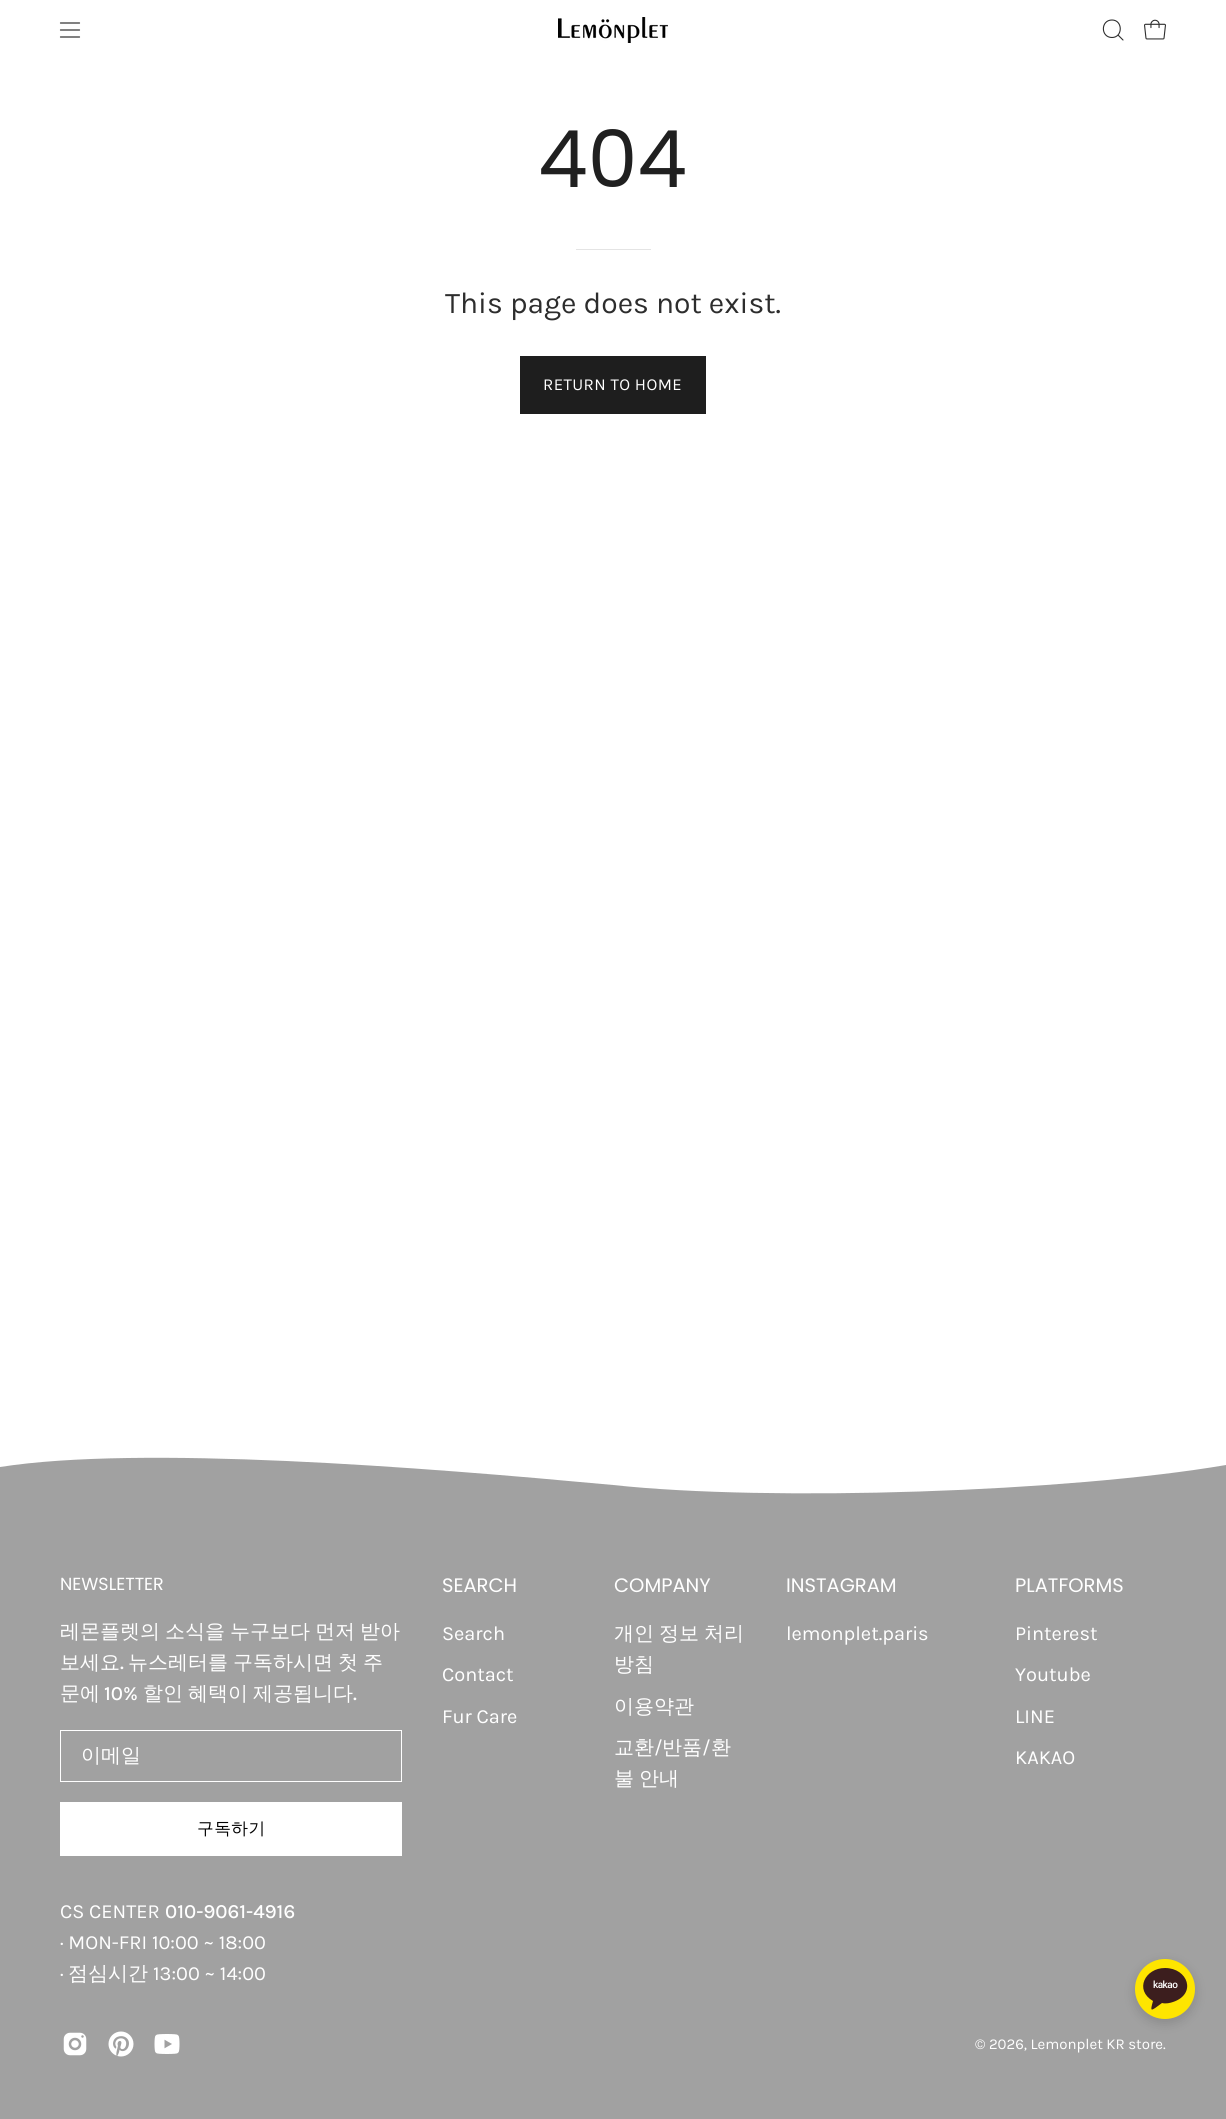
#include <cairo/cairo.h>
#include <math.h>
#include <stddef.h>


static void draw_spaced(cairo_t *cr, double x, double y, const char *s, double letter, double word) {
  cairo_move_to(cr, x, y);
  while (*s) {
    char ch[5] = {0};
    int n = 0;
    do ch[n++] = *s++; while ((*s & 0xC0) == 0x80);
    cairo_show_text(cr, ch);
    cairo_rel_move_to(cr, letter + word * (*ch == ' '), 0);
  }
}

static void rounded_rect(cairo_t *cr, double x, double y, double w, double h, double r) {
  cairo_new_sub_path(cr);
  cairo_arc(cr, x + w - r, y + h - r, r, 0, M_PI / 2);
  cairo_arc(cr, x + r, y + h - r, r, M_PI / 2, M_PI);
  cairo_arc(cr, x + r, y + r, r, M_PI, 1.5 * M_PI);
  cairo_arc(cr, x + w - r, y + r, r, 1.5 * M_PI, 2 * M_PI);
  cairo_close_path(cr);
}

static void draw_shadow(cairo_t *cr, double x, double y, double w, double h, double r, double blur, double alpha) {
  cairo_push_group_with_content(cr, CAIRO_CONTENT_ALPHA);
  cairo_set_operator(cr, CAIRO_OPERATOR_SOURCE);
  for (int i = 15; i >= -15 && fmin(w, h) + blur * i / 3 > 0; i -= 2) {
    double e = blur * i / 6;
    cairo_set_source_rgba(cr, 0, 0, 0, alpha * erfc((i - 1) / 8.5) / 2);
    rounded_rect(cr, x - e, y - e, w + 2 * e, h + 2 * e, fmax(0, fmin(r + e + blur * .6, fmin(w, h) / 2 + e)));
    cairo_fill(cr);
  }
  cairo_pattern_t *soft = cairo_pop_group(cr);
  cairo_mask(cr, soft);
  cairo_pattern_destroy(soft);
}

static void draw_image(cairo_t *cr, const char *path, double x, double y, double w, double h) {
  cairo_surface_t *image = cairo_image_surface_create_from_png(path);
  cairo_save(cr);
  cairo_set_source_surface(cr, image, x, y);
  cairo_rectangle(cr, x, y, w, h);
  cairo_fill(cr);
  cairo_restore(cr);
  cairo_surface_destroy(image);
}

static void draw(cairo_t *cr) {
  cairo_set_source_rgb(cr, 161 / 255.0, 161 / 255.0, 161 / 255.0);
  cairo_paint(cr);
  cairo_set_source_rgb(cr, 1, 1, 1);
  cairo_rectangle(cr, 0, 0, 1226, 1494);
  cairo_fill(cr);
  cairo_new_path(cr);
  cairo_move_to(cr, 60.5, 30);
  cairo_line_to(cr, 79.5, 30);
  cairo_move_to(cr, 60.5, 23);
  cairo_line_to(cr, 79.5, 23);
  cairo_move_to(cr, 60.5, 37);
  cairo_line_to(cr, 79.5, 37);
  cairo_set_source_rgb(cr, 45 / 255.0, 45 / 255.0, 45 / 255.0);
  cairo_set_line_width(cr, 1.2);
  cairo_set_line_cap(cr, CAIRO_LINE_CAP_ROUND);
  cairo_set_line_join(cr, CAIRO_LINE_JOIN_ROUND);
  cairo_stroke(cr);
  draw_image(cr, "images/1.png", 558, 17, 110, 26);
  cairo_new_path(cr);
  cairo_move_to(cr, 1112, 37.5);
  cairo_curve_to(cr, 1123, 37.5, 1123, 20, 1112, 20);
  cairo_curve_to(cr, 1100.5, 20, 1100.5, 37.5, 1112, 37.5);
  cairo_close_path(cr);
  cairo_move_to(cr, 1118, 35);
  cairo_line_to(cr, 1123, 40);
  cairo_set_line_width(cr, 1.1);
  cairo_stroke(cr);
  draw_image(cr, "images/2.png", 1144, 19, 22, 21);
  cairo_set_source_rgb(cr, 228 / 255.0, 228 / 255.0, 228 / 255.0);
  cairo_rectangle(cr, 576, 249, 75, 1);
  cairo_fill(cr);
  cairo_set_source_rgb(cr, 30 / 255.0, 30 / 255.0, 30 / 255.0);
  cairo_rectangle(cr, 520, 356, 186, 58);
  cairo_fill(cr);
  cairo_save(cr);
  cairo_rectangle(cr, 0, 1457, 1226, 57);
  cairo_clip(cr);
  cairo_set_source_rgb(cr, 161 / 255.0, 161 / 255.0, 161 / 255.0);
  cairo_new_path(cr);
  cairo_move_to(cr, 0, 1467);
  cairo_curve_to(cr, 140, 1445, 420, 1467, 613, 1485);
  cairo_curve_to(cr, 771, 1502, 1068, 1492, 1226, 1465);
  cairo_line_to(cr, 1226, 1515);
  cairo_line_to(cr, 0, 1515);
  cairo_fill(cr);
  cairo_restore(cr);
  cairo_rectangle(cr, 60.5, 1730.5, 341, 51);
  cairo_set_source_rgb(cr, 1, 1, 1);
  cairo_set_line_width(cr, 1);
  cairo_set_line_cap(cr, CAIRO_LINE_CAP_BUTT);
  cairo_set_line_join(cr, CAIRO_LINE_JOIN_MITER);
  cairo_stroke(cr);
  cairo_rectangle(cr, 60, 1802, 342, 54);
  cairo_fill(cr);
  draw_image(cr, "images/3.png", 63, 2032, 24, 24);
  draw_image(cr, "images/4.png", 108, 2031, 26, 26);
  draw_image(cr, "images/5.png", 154, 2034, 26, 20);
  cairo_set_source_rgb(cr, 0, 0, 0);
  draw_shadow(cr, 1135, 1963, 60, 60, 30, 6, 0.15);
  cairo_set_source_rgb(cr, 254 / 255.0, 229 / 255.0, 0);
  cairo_arc(cr, 1165, 1989, 30, 0, 2 * M_PI);
  cairo_fill(cr);
  cairo_set_source_rgb(cr, 60 / 255.0, 30 / 255.0, 30 / 255.0);
  cairo_new_path(cr);
  cairo_move_to(cr, 1165, 1968);
  cairo_curve_to(cr, 1145, 1968, 1134, 1990, 1153, 2001);
  cairo_curve_to(cr, 1150, 2012, 1150, 2012, 1162, 2003);
  cairo_curve_to(cr, 1166, 2004, 1170, 2003, 1173, 2002);
  cairo_curve_to(cr, 1197, 1994, 1188, 1968, 1165, 1968);
  cairo_close_path(cr);
  cairo_fill(cr);
  cairo_select_font_face(cr, "Poppins", CAIRO_FONT_SLANT_NORMAL, CAIRO_FONT_WEIGHT_NORMAL);
  cairo_set_font_size(cr, 79);
  cairo_set_source_rgb(cr, 32 / 255.0, 32 / 255.0, 32 / 255.0);
  cairo_move_to(cr, 538, 187);
  cairo_show_text(cr, "404");
  cairo_select_font_face(cr, "Karla", CAIRO_FONT_SLANT_NORMAL, CAIRO_FONT_WEIGHT_NORMAL);
  cairo_set_font_size(cr, 30);
  cairo_set_source_rgb(cr, 45 / 255.0, 45 / 255.0, 45 / 255.0);
  cairo_move_to(cr, 445, 313);
  cairo_show_text(cr, "This page does not exist.");
  cairo_set_font_size(cr, 16.75);
  cairo_set_source_rgb(cr, 1, 1, 1);
  draw_spaced(cr, 543, 390, "RETURN TO HOME", 0.4, 0);
  cairo_select_font_face(cr, "Poppins", CAIRO_FONT_SLANT_NORMAL, CAIRO_FONT_WEIGHT_NORMAL);
  cairo_set_font_size(cr, 17.5);
  cairo_move_to(cr, 60, 1590);
  cairo_show_text(cr, "NEWSLETTER");
  cairo_select_font_face(cr, "WenQuanYi Zen Hei Medium", CAIRO_FONT_SLANT_NORMAL, CAIRO_FONT_WEIGHT_NORMAL);
  cairo_set_font_size(cr, 20);
  draw_spaced(cr, 60, 1638, "레몬플렛의 소식을 누구보다 먼저 받아", 0, -1);
  cairo_move_to(cr, 60, 1669);
  cairo_show_text(cr, "보세요");
  cairo_select_font_face(cr, "Karla Medium", CAIRO_FONT_SLANT_NORMAL, CAIRO_FONT_WEIGHT_NORMAL);
  cairo_move_to(cr, 120, 1669);
  cairo_show_text(cr, ".");
  cairo_select_font_face(cr, "WenQuanYi Zen Hei Medium", CAIRO_FONT_SLANT_NORMAL, CAIRO_FONT_WEIGHT_NORMAL);
  draw_spaced(cr, 128, 1669, "뉴스레터를 구독하시면 첫 주", 0, -1);
  cairo_move_to(cr, 60, 1700);
  cairo_show_text(cr, "문에");
  cairo_select_font_face(cr, "Karla Medium", CAIRO_FONT_SLANT_NORMAL, CAIRO_FONT_WEIGHT_NORMAL);
  cairo_move_to(cr, 104, 1700);
  cairo_show_text(cr, "10%");
  cairo_select_font_face(cr, "WenQuanYi Zen Hei Medium", CAIRO_FONT_SLANT_NORMAL, CAIRO_FONT_WEIGHT_NORMAL);
  draw_spaced(cr, 143, 1700, "할인 혜택이 제공됩니다", 0, -1);
  cairo_select_font_face(cr, "Karla Medium", CAIRO_FONT_SLANT_NORMAL, CAIRO_FONT_WEIGHT_NORMAL);
  cairo_move_to(cr, 353, 1700);
  cairo_show_text(cr, ".");
  cairo_select_font_face(cr, "WenQuanYi Zen Hei Medium", CAIRO_FONT_SLANT_NORMAL, CAIRO_FONT_WEIGHT_NORMAL);
  cairo_move_to(cr, 81, 1762);
  cairo_show_text(cr, "이메일");
  cairo_set_font_size(cr, 16.75);
  cairo_set_source_rgb(cr, 0, 0, 0);
  draw_spaced(cr, 197, 1834, "구독하기", 0.4, 0);
  cairo_select_font_face(cr, "Poppins", CAIRO_FONT_SLANT_NORMAL, CAIRO_FONT_WEIGHT_NORMAL);
  cairo_set_font_size(cr, 19.5);
  cairo_set_source_rgb(cr, 1, 1, 1);
  cairo_move_to(cr, 442, 1592);
  cairo_show_text(cr, "SEARCH");
  cairo_select_font_face(cr, "Karla", CAIRO_FONT_SLANT_NORMAL, CAIRO_FONT_WEIGHT_NORMAL);
  cairo_set_font_size(cr, 20);
  cairo_move_to(cr, 442, 1640);
  cairo_show_text(cr, "Search");
  cairo_move_to(cr, 442, 1681);
  cairo_show_text(cr, "Contact");
  cairo_move_to(cr, 442, 1723);
  cairo_show_text(cr, "Fur Care");
  cairo_select_font_face(cr, "Poppins", CAIRO_FONT_SLANT_NORMAL, CAIRO_FONT_WEIGHT_NORMAL);
  cairo_set_font_size(cr, 19.5);
  cairo_move_to(cr, 614, 1592);
  cairo_show_text(cr, "COMPANY");
  cairo_select_font_face(cr, "WenQuanYi Zen Hei Medium", CAIRO_FONT_SLANT_NORMAL, CAIRO_FONT_WEIGHT_NORMAL);
  cairo_set_font_size(cr, 20);
  draw_spaced(cr, 614, 1640, "개인 정보 처리", 0, -1);
  cairo_move_to(cr, 614, 1671);
  cairo_show_text(cr, "방침");
  cairo_move_to(cr, 614, 1713);
  cairo_show_text(cr, "이용약관");
  cairo_move_to(cr, 614, 1754);
  cairo_show_text(cr, "교환");
  cairo_select_font_face(cr, "Karla", CAIRO_FONT_SLANT_NORMAL, CAIRO_FONT_WEIGHT_NORMAL);
  cairo_move_to(cr, 654, 1754);
  cairo_show_text(cr, "/");
  cairo_select_font_face(cr, "WenQuanYi Zen Hei Medium", CAIRO_FONT_SLANT_NORMAL, CAIRO_FONT_WEIGHT_NORMAL);
  cairo_move_to(cr, 662, 1754);
  cairo_show_text(cr, "반품");
  cairo_select_font_face(cr, "Karla", CAIRO_FONT_SLANT_NORMAL, CAIRO_FONT_WEIGHT_NORMAL);
  cairo_move_to(cr, 702, 1754);
  cairo_show_text(cr, "/");
  cairo_select_font_face(cr, "WenQuanYi Zen Hei Medium", CAIRO_FONT_SLANT_NORMAL, CAIRO_FONT_WEIGHT_NORMAL);
  cairo_move_to(cr, 711, 1754);
  cairo_show_text(cr, "환");
  draw_spaced(cr, 614, 1785, "불 안내", 0, -1);
  cairo_select_font_face(cr, "Poppins", CAIRO_FONT_SLANT_NORMAL, CAIRO_FONT_WEIGHT_NORMAL);
  cairo_set_font_size(cr, 19.5);
  cairo_move_to(cr, 786, 1592);
  cairo_show_text(cr, "INSTAGRAM");
  cairo_select_font_face(cr, "Karla", CAIRO_FONT_SLANT_NORMAL, CAIRO_FONT_WEIGHT_NORMAL);
  cairo_set_font_size(cr, 20);
  cairo_move_to(cr, 786, 1640);
  cairo_show_text(cr, "lemonplet.paris");
  cairo_select_font_face(cr, "Poppins", CAIRO_FONT_SLANT_NORMAL, CAIRO_FONT_WEIGHT_NORMAL);
  cairo_set_font_size(cr, 19.5);
  cairo_move_to(cr, 1015, 1592);
  cairo_show_text(cr, "PLATFORMS");
  cairo_select_font_face(cr, "Karla", CAIRO_FONT_SLANT_NORMAL, CAIRO_FONT_WEIGHT_NORMAL);
  cairo_set_font_size(cr, 20);
  cairo_move_to(cr, 1015, 1640);
  cairo_show_text(cr, "Pinterest");
  cairo_move_to(cr, 1015, 1681);
  cairo_show_text(cr, "Youtube");
  cairo_move_to(cr, 1015, 1723);
  cairo_show_text(cr, "LINE");
  cairo_move_to(cr, 1015, 1764);
  cairo_show_text(cr, "KAKAO");
  cairo_move_to(cr, 60, 1918);
  cairo_show_text(cr, "CS CENTER");
  cairo_select_font_face(cr, "Karla Medium", CAIRO_FONT_SLANT_NORMAL, CAIRO_FONT_WEIGHT_NORMAL);
  cairo_move_to(cr, 165, 1918);
  cairo_show_text(cr, "010-9061-4916");
  cairo_select_font_face(cr, "Karla", CAIRO_FONT_SLANT_NORMAL, CAIRO_FONT_WEIGHT_NORMAL);
  cairo_move_to(cr, 60, 1949);
  cairo_show_text(cr, "· MON-FRI 10:00 ~ 18:00");
  cairo_move_to(cr, 60, 1980);
  cairo_show_text(cr, "·");
  cairo_select_font_face(cr, "WenQuanYi Zen Hei Medium", CAIRO_FONT_SLANT_NORMAL, CAIRO_FONT_WEIGHT_NORMAL);
  cairo_move_to(cr, 68, 1980);
  cairo_show_text(cr, "점심시간");
  cairo_select_font_face(cr, "Karla", CAIRO_FONT_SLANT_NORMAL, CAIRO_FONT_WEIGHT_NORMAL);
  cairo_move_to(cr, 153, 1980);
  cairo_show_text(cr, "13:00 ~ 14:00");
  cairo_set_font_size(cr, 15);
  cairo_move_to(cr, 975, 2049);
  cairo_show_text(cr, "© 2026, Lemonplet KR store.");
  cairo_select_font_face(cr, "Roboto Medium", CAIRO_FONT_SLANT_NORMAL, CAIRO_FONT_WEIGHT_NORMAL);
  cairo_set_font_size(cr, 10);
  draw_spaced(cr, 1153, 1988, "kakao", -0.5, 0);
}

int main(void) {
  cairo_surface_t *surface = cairo_image_surface_create(CAIRO_FORMAT_RGB24, 1226, 2119);
  cairo_t *cr = cairo_create(surface);
  cairo_font_options_t *options = cairo_font_options_create();
  cairo_font_options_set_hint_metrics(options, CAIRO_HINT_METRICS_OFF);
  cairo_font_options_set_hint_style(options, CAIRO_HINT_STYLE_NONE);
  cairo_set_font_options(cr, options);
  cairo_set_miter_limit(cr, 4);
  draw(cr);
  cairo_surface_write_to_png(surface, "out.png");
  cairo_font_options_destroy(options);
  cairo_destroy(cr);
  cairo_surface_destroy(surface);
  return 0;
}
